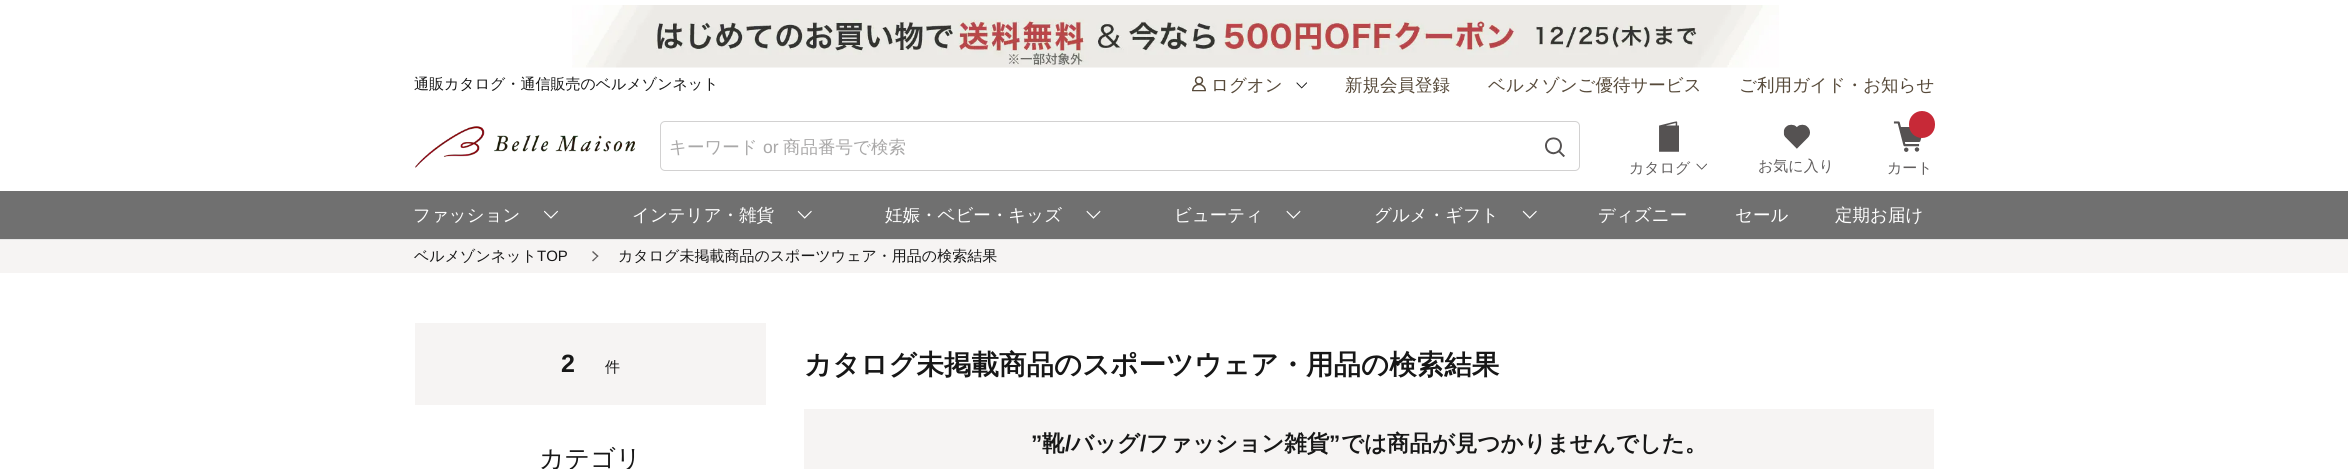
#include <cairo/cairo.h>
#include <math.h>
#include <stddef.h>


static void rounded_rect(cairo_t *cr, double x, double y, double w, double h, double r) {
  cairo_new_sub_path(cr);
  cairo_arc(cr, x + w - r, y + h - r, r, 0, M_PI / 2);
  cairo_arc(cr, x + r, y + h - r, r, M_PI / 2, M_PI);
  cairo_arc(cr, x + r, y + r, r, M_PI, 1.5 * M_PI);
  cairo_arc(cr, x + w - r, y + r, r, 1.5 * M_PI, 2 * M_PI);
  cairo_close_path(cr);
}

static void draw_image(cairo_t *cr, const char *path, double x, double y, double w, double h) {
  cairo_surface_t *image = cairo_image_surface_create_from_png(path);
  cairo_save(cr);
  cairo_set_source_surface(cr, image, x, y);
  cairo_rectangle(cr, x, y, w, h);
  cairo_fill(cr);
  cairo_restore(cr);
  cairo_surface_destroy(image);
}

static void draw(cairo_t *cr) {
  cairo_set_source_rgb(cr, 1, 1, 1);
  cairo_paint(cr);
  cairo_set_source_rgb(cr, 230 / 255.0, 230 / 255.0, 230 / 255.0);
  cairo_rectangle(cr, 0, 239, 2348, 1);
  cairo_fill(cr);
  draw_image(cr, "images/1.png", 572, 5, 1207, 63);
  draw_image(cr, "images/2.png", 1192, 76, 14, 16);
  draw_image(cr, "images/3.png", 1296, 82, 11, 7);
  draw_image(cr, "images/4.png", 415, 126, 220, 42);
  rounded_rect(cr, 660.5, 121.5, 919, 49, 4.5);
  cairo_set_source_rgb(cr, 210 / 255.0, 209 / 255.0, 209 / 255.0);
  cairo_set_line_width(cr, 1);
  cairo_stroke(cr);
  draw_image(cr, "images/5.png", 1545, 137, 20, 20);
  draw_image(cr, "images/6.png", 1659, 121, 20, 31);
  draw_image(cr, "images/7.png", 1696, 163, 11, 7);
  draw_image(cr, "images/8.png", 1783, 124, 27, 25);
  draw_image(cr, "images/9.png", 1893, 121, 29, 31);
  cairo_set_source_rgb(cr, 199 / 255.0, 41 / 255.0, 55 / 255.0);
  rounded_rect(cr, 1909, 111, 26, 27, 13);
  cairo_fill(cr);
  cairo_set_source_rgb(cr, 112 / 255.0, 112 / 255.0, 112 / 255.0);
  cairo_rectangle(cr, 0, 191, 2348, 48);
  cairo_fill(cr);
  draw_image(cr, "images/10.png", 544, 210, 14, 9);
  draw_image(cr, "images/11.png", 797, 210, 15, 9);
  draw_image(cr, "images/12.png", 1086, 210, 15, 9);
  draw_image(cr, "images/12.png", 1286, 210, 15, 9);
  draw_image(cr, "images/13.png", 1522, 210, 15, 9);
  cairo_set_source_rgb(cr, 246 / 255.0, 244 / 255.0, 243 / 255.0);
  cairo_rectangle(cr, 0, 240, 2348, 33);
  cairo_fill(cr);
  cairo_set_source_rgb(cr, 97 / 255.0, 94 / 255.0, 94 / 255.0);
  cairo_new_path(cr);
  cairo_move_to(cr, 592, 252);
  cairo_line_to(cr, 593, 251);
  cairo_line_to(cr, 598.5, 256);
  cairo_line_to(cr, 597.5, 257);
  cairo_close_path(cr);
  cairo_fill(cr);
  cairo_new_path(cr);
  cairo_move_to(cr, 592, 260.5);
  cairo_line_to(cr, 597.5, 255.5);
  cairo_line_to(cr, 598.5, 256);
  cairo_line_to(cr, 593, 261.5);
  cairo_close_path(cr);
  cairo_fill(cr);
  cairo_set_source_rgb(cr, 246 / 255.0, 244 / 255.0, 243 / 255.0);
  cairo_rectangle(cr, 415, 323, 351, 82);
  cairo_fill(cr);
  cairo_rectangle(cr, 804, 409, 1130, 60);
  cairo_fill(cr);
  cairo_select_font_face(cr, "WenQuanYi Zen Hei Medium", CAIRO_FONT_SLANT_NORMAL, CAIRO_FONT_WEIGHT_NORMAL);
  cairo_set_font_size(cr, 15);
  cairo_set_source_rgb(cr, 23 / 255.0, 23 / 255.0, 23 / 255.0);
  cairo_move_to(cr, 414, 89);
  cairo_show_text(cr, "通販カタログ・通信販売のベルメゾンネット");
  cairo_set_font_size(cr, 17.5);
  cairo_set_source_rgb(cr, 87 / 255.0, 74 / 255.0, 58 / 255.0);
  cairo_move_to(cr, 1211, 91);
  cairo_show_text(cr, "ログオン");
  cairo_move_to(cr, 1345, 91);
  cairo_show_text(cr, "新規会員登録");
  cairo_move_to(cr, 1488, 91);
  cairo_show_text(cr, "ベルメゾンご優待サービス");
  cairo_move_to(cr, 1739, 91);
  cairo_show_text(cr, "ご利用ガイド・お知らせ");
  cairo_set_source_rgb(cr, 169 / 255.0, 168 / 255.0, 168 / 255.0);
  cairo_move_to(cr, 669, 153);
  cairo_show_text(cr, "キーワード");
  cairo_select_font_face(cr, "Liberation Sans", CAIRO_FONT_SLANT_NORMAL, CAIRO_FONT_WEIGHT_NORMAL);
  cairo_move_to(cr, 763, 153);
  cairo_show_text(cr, "or");
  cairo_select_font_face(cr, "WenQuanYi Zen Hei Medium", CAIRO_FONT_SLANT_NORMAL, CAIRO_FONT_WEIGHT_NORMAL);
  cairo_move_to(cr, 783, 153);
  cairo_show_text(cr, "商品番号で検索");
  cairo_set_font_size(cr, 15);
  cairo_set_source_rgb(cr, 97 / 255.0, 94 / 255.0, 94 / 255.0);
  cairo_move_to(cr, 1629, 173);
  cairo_show_text(cr, "カタログ");
  cairo_move_to(cr, 1758, 171);
  cairo_show_text(cr, "お気に入り");
  cairo_move_to(cr, 1887, 173);
  cairo_show_text(cr, "カート");
  cairo_set_font_size(cr, 17.5);
  cairo_set_source_rgb(cr, 1, 1, 1);
  cairo_move_to(cr, 413, 221);
  cairo_show_text(cr, "ファッション");
  cairo_move_to(cr, 632, 221);
  cairo_show_text(cr, "インテリア・雑貨");
  cairo_move_to(cr, 885, 221);
  cairo_show_text(cr, "妊娠・ベビー・キッズ");
  cairo_move_to(cr, 1174, 221);
  cairo_show_text(cr, "ビューティ");
  cairo_move_to(cr, 1374, 221);
  cairo_show_text(cr, "グルメ・ギフト");
  cairo_move_to(cr, 1598, 221);
  cairo_show_text(cr, "ディズニー");
  cairo_move_to(cr, 1735, 221);
  cairo_show_text(cr, "セール");
  cairo_move_to(cr, 1835, 221);
  cairo_show_text(cr, "定期お届け");
  cairo_set_font_size(cr, 15);
  cairo_set_source_rgb(cr, 23 / 255.0, 23 / 255.0, 23 / 255.0);
  cairo_move_to(cr, 414, 261);
  cairo_show_text(cr, "ベルメゾンネット");
  cairo_select_font_face(cr, "Liberation Sans", CAIRO_FONT_SLANT_NORMAL, CAIRO_FONT_WEIGHT_NORMAL);
  cairo_move_to(cr, 537, 261);
  cairo_show_text(cr, "TOP");
  cairo_select_font_face(cr, "WenQuanYi Zen Hei Medium", CAIRO_FONT_SLANT_NORMAL, CAIRO_FONT_WEIGHT_NORMAL);
  cairo_move_to(cr, 618, 261);
  cairo_show_text(cr, "カタログ未掲載商品のスポーツウェア・用品の検索結果");
  cairo_select_font_face(cr, "Liberation Sans", CAIRO_FONT_SLANT_NORMAL, CAIRO_FONT_WEIGHT_BOLD);
  cairo_set_font_size(cr, 25);
  cairo_move_to(cr, 561, 372);
  cairo_show_text(cr, "2");
  cairo_select_font_face(cr, "WenQuanYi Zen Hei Medium", CAIRO_FONT_SLANT_NORMAL, CAIRO_FONT_WEIGHT_NORMAL);
  cairo_set_font_size(cr, 15);
  cairo_move_to(cr, 605, 372);
  cairo_show_text(cr, "件");
  cairo_set_font_size(cr, 25);
  cairo_move_to(cr, 539, 467);
  cairo_show_text(cr, "カテゴリ");
  cairo_select_font_face(cr, "WenQuanYi Zen Hei", CAIRO_FONT_SLANT_NORMAL, CAIRO_FONT_WEIGHT_BOLD);
  cairo_set_font_size(cr, 27.5);
  cairo_move_to(cr, 804, 374);
  cairo_show_text(cr, "カタログ未掲載商品のスポーツウェア・用品の検索結果");
  cairo_select_font_face(cr, "Liberation Sans", CAIRO_FONT_SLANT_NORMAL, CAIRO_FONT_WEIGHT_BOLD);
  cairo_set_font_size(cr, 22.5);
  cairo_move_to(cr, 1031, 451);
  cairo_show_text(cr, "”");
  cairo_select_font_face(cr, "WenQuanYi Zen Hei", CAIRO_FONT_SLANT_NORMAL, CAIRO_FONT_WEIGHT_BOLD);
  cairo_move_to(cr, 1042, 451);
  cairo_show_text(cr, "靴");
  cairo_select_font_face(cr, "Liberation Sans", CAIRO_FONT_SLANT_NORMAL, CAIRO_FONT_WEIGHT_BOLD);
  cairo_move_to(cr, 1065, 451);
  cairo_show_text(cr, "/");
  cairo_select_font_face(cr, "WenQuanYi Zen Hei", CAIRO_FONT_SLANT_NORMAL, CAIRO_FONT_WEIGHT_BOLD);
  cairo_move_to(cr, 1071, 451);
  cairo_show_text(cr, "バッグ");
  cairo_select_font_face(cr, "Liberation Sans", CAIRO_FONT_SLANT_NORMAL, CAIRO_FONT_WEIGHT_BOLD);
  cairo_move_to(cr, 1140, 451);
  cairo_show_text(cr, "/");
  cairo_select_font_face(cr, "WenQuanYi Zen Hei", CAIRO_FONT_SLANT_NORMAL, CAIRO_FONT_WEIGHT_BOLD);
  cairo_move_to(cr, 1146, 451);
  cairo_show_text(cr, "ファッション雑貨");
  cairo_select_font_face(cr, "Liberation Sans", CAIRO_FONT_SLANT_NORMAL, CAIRO_FONT_WEIGHT_BOLD);
  cairo_move_to(cr, 1329, 451);
  cairo_show_text(cr, "”");
  cairo_select_font_face(cr, "WenQuanYi Zen Hei", CAIRO_FONT_SLANT_NORMAL, CAIRO_FONT_WEIGHT_BOLD);
  cairo_move_to(cr, 1341, 451);
  cairo_show_text(cr, "では商品が見つかりませんでした。");
}

int main(void) {
  cairo_surface_t *surface = cairo_image_surface_create(CAIRO_FORMAT_RGB24, 2348, 469);
  cairo_t *cr = cairo_create(surface);
  cairo_font_options_t *options = cairo_font_options_create();
  cairo_font_options_set_hint_metrics(options, CAIRO_HINT_METRICS_OFF);
  cairo_font_options_set_hint_style(options, CAIRO_HINT_STYLE_NONE);
  cairo_set_font_options(cr, options);
  cairo_set_miter_limit(cr, 4);
  draw(cr);
  cairo_surface_write_to_png(surface, "out.png");
  cairo_font_options_destroy(options);
  cairo_destroy(cr);
  cairo_surface_destroy(surface);
  return 0;
}
